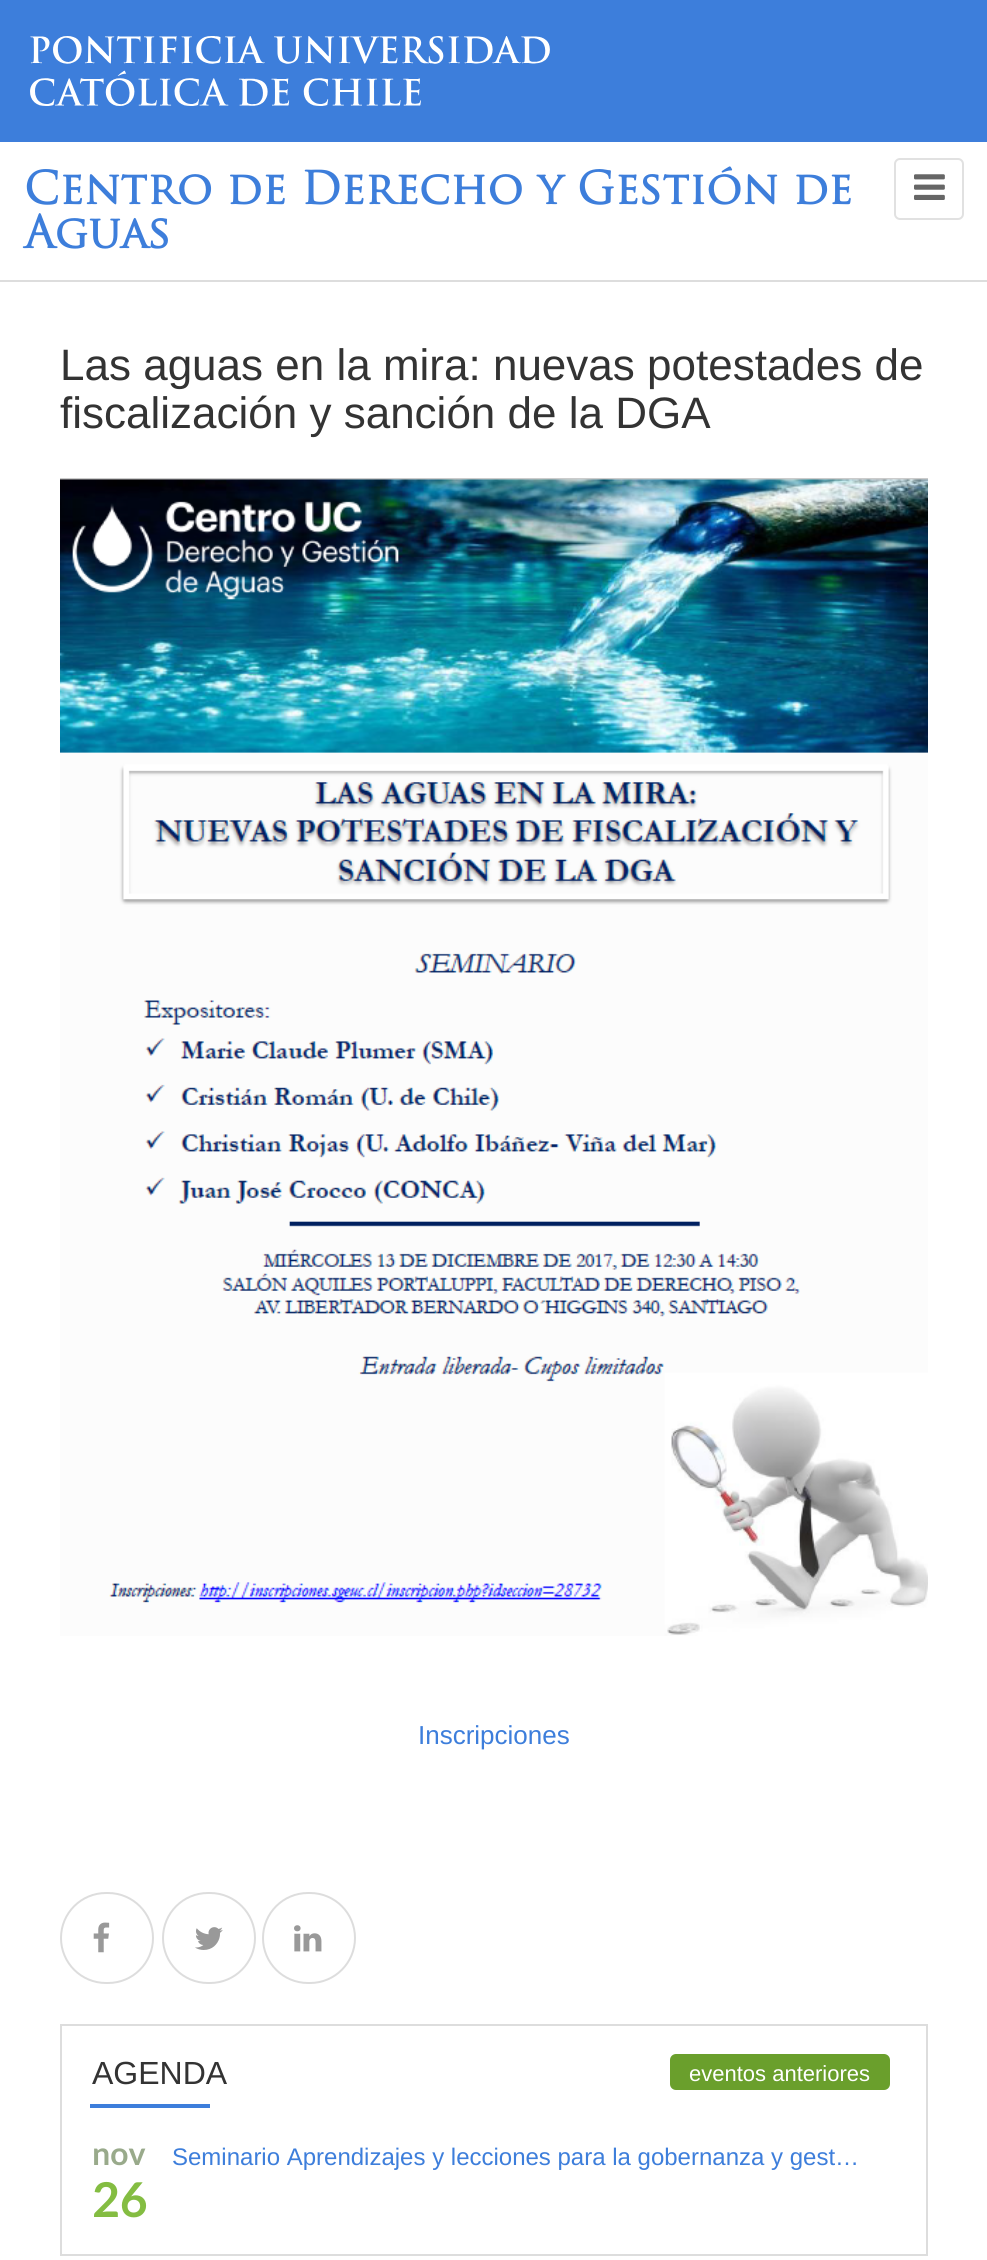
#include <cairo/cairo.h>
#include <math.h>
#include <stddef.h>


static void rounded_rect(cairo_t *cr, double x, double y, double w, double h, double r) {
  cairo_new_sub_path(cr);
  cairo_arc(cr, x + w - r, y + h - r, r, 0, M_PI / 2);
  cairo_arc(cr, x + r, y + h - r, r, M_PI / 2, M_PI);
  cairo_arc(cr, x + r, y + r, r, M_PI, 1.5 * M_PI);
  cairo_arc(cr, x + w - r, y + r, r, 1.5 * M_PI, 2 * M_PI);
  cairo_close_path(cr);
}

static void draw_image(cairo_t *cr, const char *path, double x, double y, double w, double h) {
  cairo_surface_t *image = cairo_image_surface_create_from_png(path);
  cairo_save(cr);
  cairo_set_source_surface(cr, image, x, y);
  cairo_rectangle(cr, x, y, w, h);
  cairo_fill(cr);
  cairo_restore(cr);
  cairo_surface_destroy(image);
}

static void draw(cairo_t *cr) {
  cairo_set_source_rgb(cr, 1, 1, 1);
  cairo_paint(cr);
  cairo_set_source_rgb(cr, 61 / 255.0, 126 / 255.0, 219 / 255.0);
  cairo_rectangle(cr, 0, 0, 987, 142);
  cairo_fill(cr);
  draw_image(cr, "images/1.png", 30, 36, 520, 70);
  cairo_set_source_rgb(cr, 221 / 255.0, 221 / 255.0, 221 / 255.0);
  cairo_rectangle(cr, 0, 280, 987, 2);
  cairo_fill(cr);
  rounded_rect(cr, 895, 159, 68, 60, 5);
  cairo_set_source_rgb(cr, 225 / 255.0, 225 / 255.0, 225 / 255.0);
  cairo_stroke(cr);
  draw_image(cr, "images/2.png", 914, 174, 31, 26);
  draw_image(cr, "images/3.png", 60, 478, 868, 1158);
  rounded_rect(cr, 61, 1893, 92, 90, 45);
  cairo_set_source_rgb(cr, 221 / 255.0, 221 / 255.0, 221 / 255.0);
  cairo_stroke(cr);
  draw_image(cr, "images/4.png", 93, 1922, 17, 31);
  rounded_rect(cr, 163, 1893, 92, 90, 45);
  cairo_stroke(cr);
  draw_image(cr, "images/5.png", 195, 1927, 28, 23);
  rounded_rect(cr, 263, 1893, 92, 90, 45);
  cairo_stroke(cr);
  draw_image(cr, "images/6.png", 294, 1925, 28, 27);
  cairo_rectangle(cr, 61, 2025, 866, 230);
  cairo_stroke(cr);
  cairo_set_source_rgb(cr, 61 / 255.0, 126 / 255.0, 219 / 255.0);
  cairo_rectangle(cr, 90, 2104, 120, 4);
  cairo_fill(cr);
  cairo_set_source_rgb(cr, 106 / 255.0, 159 / 255.0, 44 / 255.0);
  rounded_rect(cr, 670, 2054, 220, 36, 6);
  cairo_fill(cr);
  cairo_select_font_face(cr, "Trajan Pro", CAIRO_FONT_SLANT_NORMAL, CAIRO_FONT_WEIGHT_BOLD);
  cairo_set_font_size(cr, 44);
  cairo_set_source_rgb(cr, 61 / 255.0, 126 / 255.0, 219 / 255.0);
  cairo_move_to(cr, 24, 204);
  cairo_show_text(cr, "Centro de Derecho y Gestión de");
  cairo_move_to(cr, 24, 248);
  cairo_show_text(cr, "Aguas");
  cairo_select_font_face(cr, "Liberation Sans", CAIRO_FONT_SLANT_NORMAL, CAIRO_FONT_WEIGHT_NORMAL);
  cairo_set_source_rgb(cr, 51 / 255.0, 51 / 255.0, 51 / 255.0);
  cairo_move_to(cr, 60, 380);
  cairo_show_text(cr, "Las aguas en la mira: nuevas potestades de");
  cairo_move_to(cr, 60, 428);
  cairo_show_text(cr, "fiscalización y sanción de la DGA");
  cairo_set_font_size(cr, 26);
  cairo_set_source_rgb(cr, 61 / 255.0, 126 / 255.0, 219 / 255.0);
  cairo_move_to(cr, 418, 1744);
  cairo_show_text(cr, "Inscripciones");
  cairo_set_font_size(cr, 32);
  cairo_set_source_rgb(cr, 51 / 255.0, 51 / 255.0, 51 / 255.0);
  cairo_move_to(cr, 92, 2084);
  cairo_show_text(cr, "AGENDA");
  cairo_select_font_face(cr, "Lato", CAIRO_FONT_SLANT_NORMAL, CAIRO_FONT_WEIGHT_BOLD);
  cairo_set_source_rgb(cr, 153 / 255.0, 170 / 255.0, 139 / 255.0);
  cairo_move_to(cr, 92, 2165);
  cairo_show_text(cr, "nov");
  cairo_set_font_size(cr, 48);
  cairo_set_source_rgb(cr, 132 / 255.0, 189 / 255.0, 66 / 255.0);
  cairo_move_to(cr, 92, 2217);
  cairo_show_text(cr, "26");
  cairo_select_font_face(cr, "Liberation Sans", CAIRO_FONT_SLANT_NORMAL, CAIRO_FONT_WEIGHT_NORMAL);
  cairo_set_font_size(cr, 24);
  cairo_set_source_rgb(cr, 61 / 255.0, 126 / 255.0, 219 / 255.0);
  cairo_move_to(cr, 172, 2165);
  cairo_show_text(cr, "Seminario Aprendizajes y lecciones para la gobernanza y gest…");
  cairo_set_font_size(cr, 22);
  cairo_set_source_rgb(cr, 1, 1, 1);
  cairo_move_to(cr, 689, 2081);
  cairo_show_text(cr, "eventos anteriores");
}

int main(void) {
  cairo_surface_t *surface = cairo_image_surface_create(CAIRO_FORMAT_RGB24, 987, 2260);
  cairo_t *cr = cairo_create(surface);
  cairo_font_options_t *options = cairo_font_options_create();
  cairo_font_options_set_hint_metrics(options, CAIRO_HINT_METRICS_OFF);
  cairo_font_options_set_hint_style(options, CAIRO_HINT_STYLE_NONE);
  cairo_set_font_options(cr, options);
  cairo_set_miter_limit(cr, 4);
  draw(cr);
  cairo_surface_write_to_png(surface, "out.png");
  cairo_font_options_destroy(options);
  cairo_destroy(cr);
  cairo_surface_destroy(surface);
  return 0;
}
